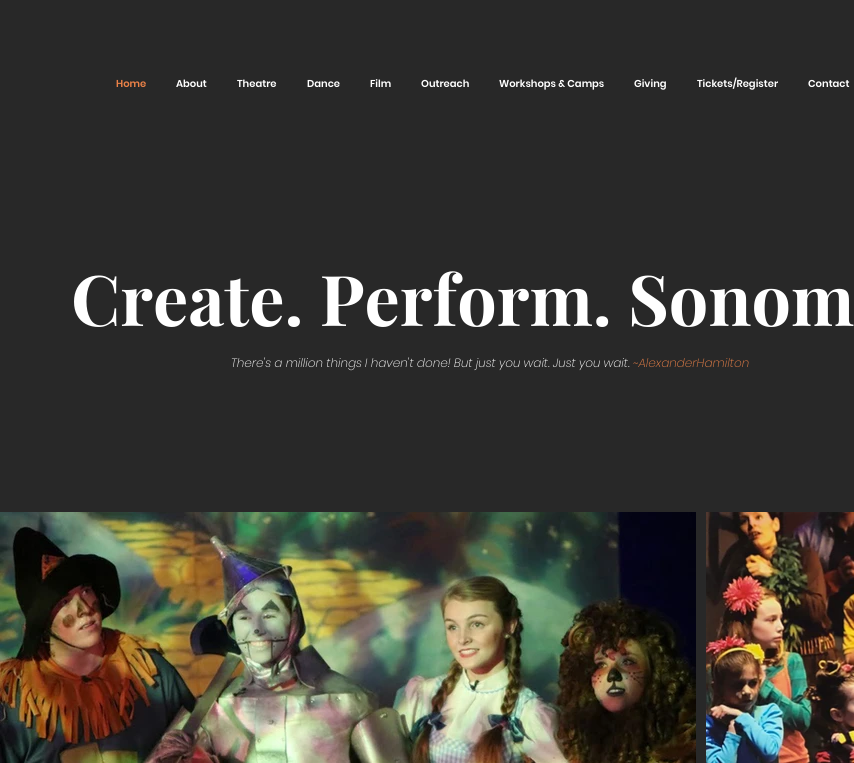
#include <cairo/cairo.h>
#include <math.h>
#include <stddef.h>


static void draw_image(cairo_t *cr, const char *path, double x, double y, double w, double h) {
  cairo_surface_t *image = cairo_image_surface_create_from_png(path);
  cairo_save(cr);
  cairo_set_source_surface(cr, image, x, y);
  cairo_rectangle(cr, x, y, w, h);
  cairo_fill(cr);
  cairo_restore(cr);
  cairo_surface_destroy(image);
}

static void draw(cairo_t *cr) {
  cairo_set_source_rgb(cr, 40 / 255.0, 40 / 255.0, 40 / 255.0);
  cairo_paint(cr);
  draw_image(cr, "images/1.png", 0, 512, 696, 251);
  draw_image(cr, "images/2.png", 706, 512, 148, 251);
  cairo_select_font_face(cr, "Poppins SemiBold", CAIRO_FONT_SLANT_NORMAL, CAIRO_FONT_WEIGHT_NORMAL);
  cairo_set_font_size(cr, 10);
  cairo_set_source_rgb(cr, 235 / 255.0, 129 / 255.0, 71 / 255.0);
  cairo_move_to(cr, 116, 87);
  cairo_show_text(cr, "Home");
  cairo_set_source_rgb(cr, 1, 1, 1);
  cairo_move_to(cr, 176, 87);
  cairo_show_text(cr, "About");
  cairo_move_to(cr, 237, 87);
  cairo_show_text(cr, "Theatre");
  cairo_move_to(cr, 307, 87);
  cairo_show_text(cr, "Dance");
  cairo_move_to(cr, 370, 87);
  cairo_show_text(cr, "Film");
  cairo_move_to(cr, 421, 87);
  cairo_show_text(cr, "Outreach");
  cairo_move_to(cr, 499, 87);
  cairo_show_text(cr, "Workshops & Camps");
  cairo_move_to(cr, 634, 87);
  cairo_show_text(cr, "Giving");
  cairo_move_to(cr, 697, 87);
  cairo_show_text(cr, "Tickets/Register");
  cairo_move_to(cr, 808, 87);
  cairo_show_text(cr, "Contact");
  cairo_select_font_face(cr, "Playfair Display", CAIRO_FONT_SLANT_NORMAL, CAIRO_FONT_WEIGHT_BOLD);
  cairo_set_font_size(cr, 70);
  cairo_move_to(cr, 71, 326);
  cairo_show_text(cr, "Create. Perform. Sonom");
  cairo_select_font_face(cr, "Poppins ExtraLight", CAIRO_FONT_SLANT_ITALIC, CAIRO_FONT_WEIGHT_NORMAL);
  cairo_set_font_size(cr, 12);
  cairo_move_to(cr, 231, 367);
  cairo_show_text(cr, "There's a million things I haven't done! But just you wait. Just you wait.");
  cairo_set_source_rgb(cr, 235 / 255.0, 129 / 255.0, 71 / 255.0);
  cairo_move_to(cr, 633, 367);
  cairo_show_text(cr, "~AlexanderHamilton");
}

int main(void) {
  cairo_surface_t *surface = cairo_image_surface_create(CAIRO_FORMAT_RGB24, 854, 763);
  cairo_t *cr = cairo_create(surface);
  cairo_font_options_t *options = cairo_font_options_create();
  cairo_font_options_set_hint_metrics(options, CAIRO_HINT_METRICS_OFF);
  cairo_font_options_set_hint_style(options, CAIRO_HINT_STYLE_NONE);
  cairo_set_font_options(cr, options);
  cairo_set_miter_limit(cr, 4);
  draw(cr);
  cairo_surface_write_to_png(surface, "out.png");
  cairo_font_options_destroy(options);
  cairo_destroy(cr);
  cairo_surface_destroy(surface);
  return 0;
}
